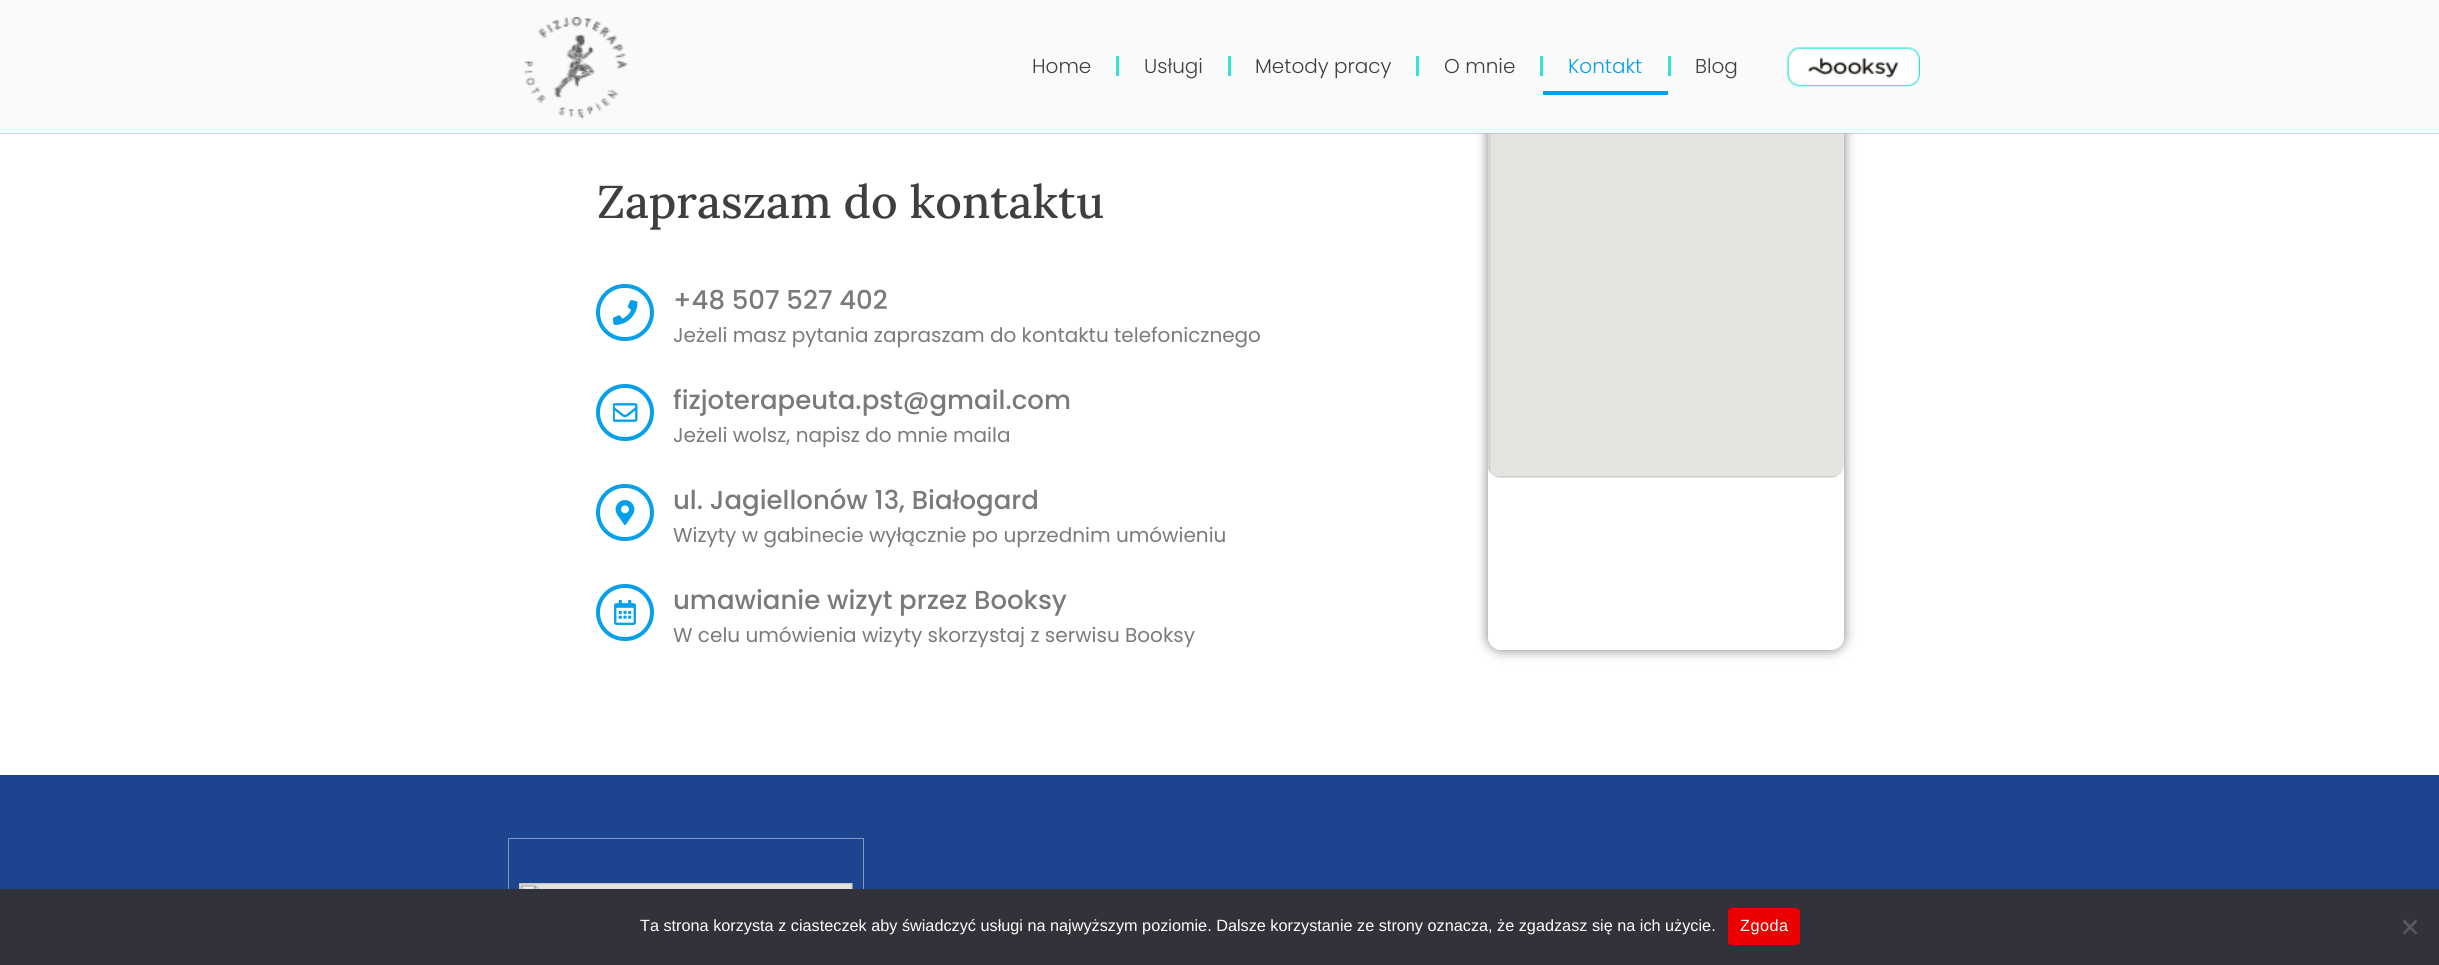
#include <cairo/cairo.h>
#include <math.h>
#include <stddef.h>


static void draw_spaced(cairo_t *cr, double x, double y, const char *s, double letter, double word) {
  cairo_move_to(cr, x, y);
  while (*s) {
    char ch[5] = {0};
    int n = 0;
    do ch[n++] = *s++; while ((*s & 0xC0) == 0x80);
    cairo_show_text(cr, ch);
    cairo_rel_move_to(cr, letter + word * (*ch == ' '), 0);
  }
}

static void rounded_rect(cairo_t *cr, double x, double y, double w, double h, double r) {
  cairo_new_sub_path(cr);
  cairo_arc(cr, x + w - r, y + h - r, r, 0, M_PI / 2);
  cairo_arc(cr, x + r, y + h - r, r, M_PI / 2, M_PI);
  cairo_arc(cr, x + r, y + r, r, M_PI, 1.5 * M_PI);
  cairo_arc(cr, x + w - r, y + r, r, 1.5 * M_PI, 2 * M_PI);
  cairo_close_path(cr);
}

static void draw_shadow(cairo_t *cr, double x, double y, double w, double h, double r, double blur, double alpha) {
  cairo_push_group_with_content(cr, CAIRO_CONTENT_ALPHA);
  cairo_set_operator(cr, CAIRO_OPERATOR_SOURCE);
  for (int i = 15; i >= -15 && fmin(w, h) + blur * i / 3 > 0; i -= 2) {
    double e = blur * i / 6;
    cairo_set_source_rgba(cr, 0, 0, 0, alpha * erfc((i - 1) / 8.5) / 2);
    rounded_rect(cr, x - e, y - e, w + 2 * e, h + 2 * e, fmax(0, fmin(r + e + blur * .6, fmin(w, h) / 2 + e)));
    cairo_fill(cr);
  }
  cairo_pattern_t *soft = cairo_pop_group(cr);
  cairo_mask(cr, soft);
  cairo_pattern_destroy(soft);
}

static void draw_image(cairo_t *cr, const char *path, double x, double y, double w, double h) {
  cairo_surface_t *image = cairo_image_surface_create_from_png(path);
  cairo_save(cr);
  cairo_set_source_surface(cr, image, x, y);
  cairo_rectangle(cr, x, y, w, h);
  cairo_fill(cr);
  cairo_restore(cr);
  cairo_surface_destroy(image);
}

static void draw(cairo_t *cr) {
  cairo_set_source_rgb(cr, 1, 1, 1);
  cairo_paint(cr);
  cairo_save(cr);
  cairo_set_fill_rule(cr, CAIRO_FILL_RULE_EVEN_ODD);
  cairo_new_path(cr);
  cairo_move_to(cr, 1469, 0);
  cairo_line_to(cr, 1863, 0);
  cairo_line_to(cr, 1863, 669);
  cairo_line_to(cr, 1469, 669);
  cairo_close_path(cr);
  cairo_move_to(cr, 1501, -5);
  cairo_line_to(cr, 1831, -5);
  cairo_curve_to(cr, 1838, -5, 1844, 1, 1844, 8);
  cairo_line_to(cr, 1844, 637);
  cairo_curve_to(cr, 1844, 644, 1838, 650, 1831, 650);
  cairo_line_to(cr, 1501, 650);
  cairo_curve_to(cr, 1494, 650, 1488, 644, 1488, 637);
  cairo_line_to(cr, 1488, 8);
  cairo_curve_to(cr, 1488, 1, 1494, -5, 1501, -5);
  cairo_close_path(cr);
  cairo_clip(cr);
  cairo_set_source_rgb(cr, 0, 0, 0);
  draw_shadow(cr, 1488, -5, 356, 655, 13, 6, 0.5);
  cairo_restore(cr);
  draw_image(cr, "images/7.png", 1487, 133, 357, 345);
  cairo_set_source_rgba(cr, 52 / 255.0, 226 / 255.0, 215 / 255.0, 0.48);
  cairo_rectangle(cr, 0, 133, 2439, 1);
  cairo_fill(cr);
  cairo_set_source_rgb(cr, 250 / 255.0, 250 / 255.0, 250 / 255.0);
  cairo_rectangle(cr, 0, 0, 2439, 133);
  cairo_fill(cr);
  draw_image(cr, "images/1.png", 524, 16, 104, 103);
  cairo_set_source_rgb(cr, 52 / 255.0, 226 / 255.0, 215 / 255.0);
  cairo_rectangle(cr, 1116, 56, 3, 20);
  cairo_fill(cr);
  cairo_rectangle(cr, 1228, 56, 3, 20);
  cairo_fill(cr);
  cairo_rectangle(cr, 1416, 56, 3, 20);
  cairo_fill(cr);
  cairo_rectangle(cr, 1540, 56, 3, 20);
  cairo_fill(cr);
  cairo_set_source_rgb(cr, 6 / 255.0, 159 / 255.0, 234 / 255.0);
  cairo_rectangle(cr, 1543, 91, 125, 4);
  cairo_fill(cr);
  cairo_set_source_rgb(cr, 52 / 255.0, 226 / 255.0, 215 / 255.0);
  cairo_rectangle(cr, 1668, 56, 3, 20);
  cairo_fill(cr);
  draw_image(cr, "images/2.png", 1787, 47, 133, 40);
  rounded_rect(cr, 598, 286, 54, 53, 26.5);
  cairo_set_source_rgb(cr, 6 / 255.0, 159 / 255.0, 234 / 255.0);
  cairo_set_line_width(cr, 4);
  cairo_stroke(cr);
  draw_image(cr, "images/3.png", 613, 300, 25, 25);
  rounded_rect(cr, 598, 386, 54, 53, 26.5);
  cairo_stroke(cr);
  draw_image(cr, "images/4.png", 613, 403, 25, 19);
  rounded_rect(cr, 598, 486, 54, 53, 26.5);
  cairo_stroke(cr);
  draw_image(cr, "images/5.png", 615, 500, 20, 25);
  rounded_rect(cr, 598, 586, 54, 53, 26.5);
  cairo_stroke(cr);
  draw_image(cr, "images/6.png", 614, 600, 22, 25);
  cairo_set_source_rgb(cr, 29 / 255.0, 68 / 255.0, 142 / 255.0);
  cairo_rectangle(cr, 0, 775, 2439, 114);
  cairo_fill(cr);
  cairo_rectangle(cr, 508.5, 838.5, 355, 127);
  cairo_set_source_rgb(cr, 131 / 255.0, 152 / 255.0, 193 / 255.0);
  cairo_set_line_width(cr, 1);
  cairo_stroke(cr);
  draw_image(cr, "images/8.png", 519, 883, 334, 6);
  cairo_set_source_rgb(cr, 50 / 255.0, 50 / 255.0, 58 / 255.0);
  cairo_rectangle(cr, 0, 889, 2439, 76);
  cairo_fill(cr);
  cairo_set_source_rgb(cr, 234 / 255.0, 0, 0);
  rounded_rect(cr, 1728, 908, 72, 37, 4);
  cairo_fill(cr);
  cairo_set_source_rgb(cr, 89 / 255.0, 89 / 255.0, 93 / 255.0);
  cairo_new_path(cr);
  cairo_move_to(cr, 2415.5, 919.5);
  cairo_line_to(cr, 2417.5, 921.5);
  cairo_line_to(cr, 2404.5, 934.5);
  cairo_line_to(cr, 2402.5, 933);
  cairo_close_path(cr);
  cairo_fill(cr);
  cairo_new_path(cr);
  cairo_move_to(cr, 2402.5, 921.5);
  cairo_line_to(cr, 2404.5, 919.5);
  cairo_line_to(cr, 2417.5, 933);
  cairo_line_to(cr, 2415.5, 934.5);
  cairo_close_path(cr);
  cairo_fill(cr);
  cairo_select_font_face(cr, "Poppins Light", CAIRO_FONT_SLANT_NORMAL, CAIRO_FONT_WEIGHT_NORMAL);
  cairo_set_font_size(cr, 20);
  cairo_set_source_rgb(cr, 61 / 255.0, 63 / 255.0, 65 / 255.0);
  cairo_move_to(cr, 1032, 73);
  cairo_show_text(cr, "Home");
  cairo_move_to(cr, 1144, 73);
  cairo_show_text(cr, "Usługi");
  cairo_move_to(cr, 1255, 73);
  cairo_show_text(cr, "Metody pracy");
  cairo_move_to(cr, 1444, 73);
  cairo_show_text(cr, "O mnie");
  cairo_set_source_rgb(cr, 6 / 255.0, 159 / 255.0, 234 / 255.0);
  cairo_move_to(cr, 1568, 73);
  cairo_show_text(cr, "Kontakt");
  cairo_set_source_rgb(cr, 61 / 255.0, 63 / 255.0, 65 / 255.0);
  cairo_move_to(cr, 1695, 73);
  cairo_show_text(cr, "Blog");
  cairo_select_font_face(cr, "Lora Medium", CAIRO_FONT_SLANT_NORMAL, CAIRO_FONT_WEIGHT_NORMAL);
  cairo_set_font_size(cr, 46);
  cairo_move_to(cr, 597, 218);
  cairo_show_text(cr, "Zapraszam do kontaktu");
  cairo_select_font_face(cr, "Poppins Medium", CAIRO_FONT_SLANT_NORMAL, CAIRO_FONT_WEIGHT_NORMAL);
  cairo_set_font_size(cr, 26);
  cairo_set_source_rgb(cr, 122 / 255.0, 122 / 255.0, 122 / 255.0);
  cairo_move_to(cr, 673, 309);
  cairo_show_text(cr, "+48 507 527 402");
  cairo_select_font_face(cr, "Poppins", CAIRO_FONT_SLANT_NORMAL, CAIRO_FONT_WEIGHT_NORMAL);
  cairo_set_font_size(cr, 20);
  cairo_move_to(cr, 673, 342);
  cairo_show_text(cr, "Jeżeli masz pytania zapraszam do kontaktu telefonicznego");
  cairo_select_font_face(cr, "Poppins Medium", CAIRO_FONT_SLANT_NORMAL, CAIRO_FONT_WEIGHT_NORMAL);
  cairo_set_font_size(cr, 26);
  cairo_move_to(cr, 673, 409);
  cairo_show_text(cr, "fizjoterapeuta.pst@gmail.com");
  cairo_select_font_face(cr, "Poppins", CAIRO_FONT_SLANT_NORMAL, CAIRO_FONT_WEIGHT_NORMAL);
  cairo_set_font_size(cr, 20);
  cairo_move_to(cr, 673, 442);
  cairo_show_text(cr, "Jeżeli wolsz, napisz do mnie maila");
  cairo_select_font_face(cr, "Poppins Medium", CAIRO_FONT_SLANT_NORMAL, CAIRO_FONT_WEIGHT_NORMAL);
  cairo_set_font_size(cr, 26);
  cairo_move_to(cr, 673, 509);
  cairo_show_text(cr, "ul. Jagiellonów 13, Białogard");
  cairo_select_font_face(cr, "Poppins", CAIRO_FONT_SLANT_NORMAL, CAIRO_FONT_WEIGHT_NORMAL);
  cairo_set_font_size(cr, 20);
  cairo_move_to(cr, 673, 542);
  cairo_show_text(cr, "Wizyty w gabinecie wyłącznie po uprzednim umówieniu");
  cairo_select_font_face(cr, "Poppins Medium", CAIRO_FONT_SLANT_NORMAL, CAIRO_FONT_WEIGHT_NORMAL);
  cairo_set_font_size(cr, 26);
  cairo_move_to(cr, 673, 609);
  cairo_show_text(cr, "umawianie wizyt przez Booksy");
  cairo_select_font_face(cr, "Poppins", CAIRO_FONT_SLANT_NORMAL, CAIRO_FONT_WEIGHT_NORMAL);
  cairo_set_font_size(cr, 20);
  cairo_move_to(cr, 673, 642);
  cairo_show_text(cr, "W celu umówienia wizyty skorzystaj z serwisu Booksy");
  cairo_select_font_face(cr, "Liberation Sans", CAIRO_FONT_SLANT_NORMAL, CAIRO_FONT_WEIGHT_NORMAL);
  cairo_set_font_size(cr, 16.25);
  cairo_set_source_rgb(cr, 1, 1, 1);
  cairo_move_to(cr, 640, 931);
  cairo_show_text(cr, "Ta strona korzysta z ciasteczek aby świadczyć usługi na najwyższym poziomie. Dalsze korzystanie ze strony oznacza, że zgadzasz się na ich użycie.");
  draw_spaced(cr, 1740, 931, "Zgoda", 0.5, 0);
}

int main(void) {
  cairo_surface_t *surface = cairo_image_surface_create(CAIRO_FORMAT_RGB24, 2439, 965);
  cairo_t *cr = cairo_create(surface);
  cairo_font_options_t *options = cairo_font_options_create();
  cairo_font_options_set_hint_metrics(options, CAIRO_HINT_METRICS_OFF);
  cairo_font_options_set_hint_style(options, CAIRO_HINT_STYLE_NONE);
  cairo_set_font_options(cr, options);
  cairo_set_miter_limit(cr, 4);
  draw(cr);
  cairo_surface_write_to_png(surface, "out.png");
  cairo_font_options_destroy(options);
  cairo_destroy(cr);
  cairo_surface_destroy(surface);
  return 0;
}
